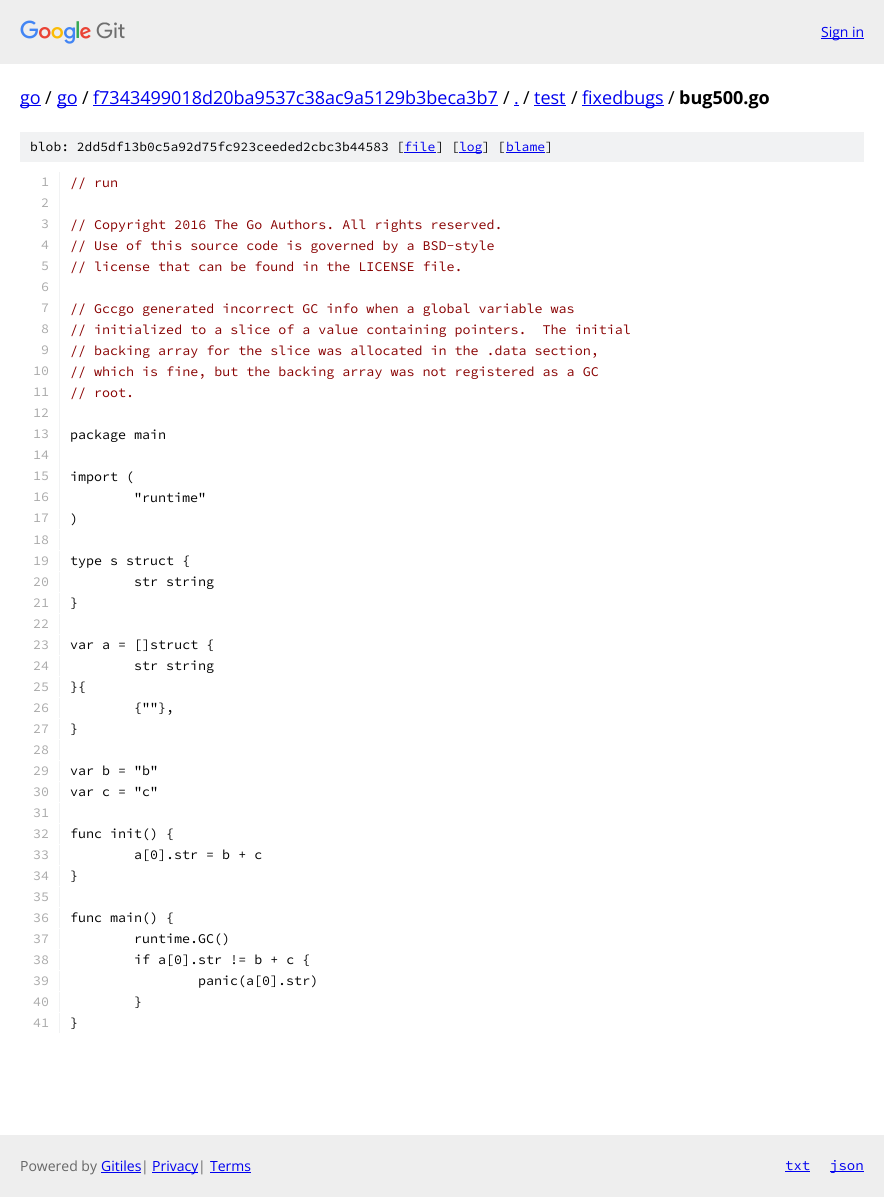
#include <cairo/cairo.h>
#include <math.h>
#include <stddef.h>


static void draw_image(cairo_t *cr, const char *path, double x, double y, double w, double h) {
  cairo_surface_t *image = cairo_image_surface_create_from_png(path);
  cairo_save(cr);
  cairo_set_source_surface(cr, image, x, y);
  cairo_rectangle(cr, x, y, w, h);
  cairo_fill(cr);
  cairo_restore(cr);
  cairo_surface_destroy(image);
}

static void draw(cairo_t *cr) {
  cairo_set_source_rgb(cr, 1, 1, 1);
  cairo_paint(cr);
  cairo_set_source_rgb(cr, 238 / 255.0, 238 / 255.0, 238 / 255.0);
  cairo_rectangle(cr, 0, 0, 884, 64);
  cairo_fill(cr);
  draw_image(cr, "images/1.png", 20, 20, 105, 24);
  cairo_set_source_rgb(cr, 0, 0, 238 / 255.0);
  cairo_rectangle(cr, 821, 38, 43, 1);
  cairo_fill(cr);
  cairo_rectangle(cr, 20, 105, 21, 1);
  cairo_fill(cr);
  cairo_rectangle(cr, 57, 105, 20, 1);
  cairo_fill(cr);
  cairo_rectangle(cr, 93, 105, 405, 1);
  cairo_fill(cr);
  cairo_rectangle(cr, 514, 105, 5, 1);
  cairo_fill(cr);
  cairo_rectangle(cr, 534, 105, 32, 1);
  cairo_fill(cr);
  cairo_rectangle(cr, 582, 105, 82, 1);
  cairo_fill(cr);
  cairo_set_source_rgb(cr, 241 / 255.0, 242 / 255.0, 243 / 255.0);
  cairo_rectangle(cr, 20, 132, 844, 30);
  cairo_fill(cr);
  cairo_set_source_rgb(cr, 0, 0, 238 / 255.0);
  cairo_rectangle(cr, 404, 152, 32, 1);
  cairo_fill(cr);
  cairo_rectangle(cr, 459, 152, 23, 1);
  cairo_fill(cr);
  cairo_rectangle(cr, 506, 152, 39, 1);
  cairo_fill(cr);
  cairo_set_source_rgb(cr, 241 / 255.0, 242 / 255.0, 243 / 255.0);
  cairo_rectangle(cr, 59, 172, 1, 357);
  cairo_fill(cr);
  cairo_rectangle(cr, 59, 530, 1, 20);
  cairo_fill(cr);
  cairo_rectangle(cr, 59, 551, 1, 20);
  cairo_fill(cr);
  cairo_rectangle(cr, 59, 572, 1, 20);
  cairo_fill(cr);
  cairo_rectangle(cr, 59, 593, 1, 20);
  cairo_fill(cr);
  cairo_rectangle(cr, 59, 614, 1, 20);
  cairo_fill(cr);
  cairo_rectangle(cr, 59, 635, 1, 20);
  cairo_fill(cr);
  cairo_rectangle(cr, 59, 656, 1, 20);
  cairo_fill(cr);
  cairo_rectangle(cr, 59, 677, 1, 20);
  cairo_fill(cr);
  cairo_rectangle(cr, 59, 698, 1, 20);
  cairo_fill(cr);
  cairo_rectangle(cr, 59, 719, 1, 20);
  cairo_fill(cr);
  cairo_rectangle(cr, 59, 740, 1, 20);
  cairo_fill(cr);
  cairo_rectangle(cr, 59, 761, 1, 20);
  cairo_fill(cr);
  cairo_rectangle(cr, 59, 782, 1, 20);
  cairo_fill(cr);
  cairo_rectangle(cr, 59, 803, 1, 20);
  cairo_fill(cr);
  cairo_rectangle(cr, 59, 824, 1, 20);
  cairo_fill(cr);
  cairo_rectangle(cr, 59, 845, 1, 20);
  cairo_fill(cr);
  cairo_rectangle(cr, 59, 866, 1, 20);
  cairo_fill(cr);
  cairo_rectangle(cr, 59, 887, 1, 20);
  cairo_fill(cr);
  cairo_rectangle(cr, 59, 908, 1, 20);
  cairo_fill(cr);
  cairo_rectangle(cr, 59, 929, 1, 20);
  cairo_fill(cr);
  cairo_rectangle(cr, 59, 950, 1, 20);
  cairo_fill(cr);
  cairo_rectangle(cr, 59, 971, 1, 20);
  cairo_fill(cr);
  cairo_rectangle(cr, 59, 992, 1, 20);
  cairo_fill(cr);
  cairo_rectangle(cr, 59, 1013, 1, 20);
  cairo_fill(cr);
  cairo_set_source_rgb(cr, 238 / 255.0, 238 / 255.0, 238 / 255.0);
  cairo_rectangle(cr, 0, 1135, 884, 62);
  cairo_fill(cr);
  cairo_set_source_rgb(cr, 0, 0, 238 / 255.0);
  cairo_rectangle(cr, 101, 1172, 40, 1);
  cairo_fill(cr);
  cairo_rectangle(cr, 152, 1172, 46, 1);
  cairo_fill(cr);
  cairo_rectangle(cr, 210, 1172, 41, 1);
  cairo_fill(cr);
  cairo_rectangle(cr, 785, 1171, 25, 1);
  cairo_fill(cr);
  cairo_rectangle(cr, 830, 1171, 34, 1);
  cairo_fill(cr);
  cairo_select_font_face(cr, "Open Sans", CAIRO_FONT_SLANT_NORMAL, CAIRO_FONT_WEIGHT_NORMAL);
  cairo_set_font_size(cr, 14);
  cairo_move_to(cr, 821, 37);
  cairo_show_text(cr, "Sign in");
  cairo_set_font_size(cr, 18);
  cairo_move_to(cr, 20, 104);
  cairo_show_text(cr, "go");
  cairo_set_source_rgb(cr, 0, 0, 0);
  cairo_move_to(cr, 45, 104);
  cairo_show_text(cr, "/");
  cairo_set_source_rgb(cr, 0, 0, 238 / 255.0);
  cairo_move_to(cr, 57, 104);
  cairo_show_text(cr, "go");
  cairo_set_source_rgb(cr, 0, 0, 0);
  cairo_move_to(cr, 82, 104);
  cairo_show_text(cr, "/");
  cairo_set_source_rgb(cr, 0, 0, 238 / 255.0);
  cairo_move_to(cr, 93, 104);
  cairo_show_text(cr, "f7343499018d20ba9537c38ac9a5129b3beca3b7");
  cairo_set_source_rgb(cr, 0, 0, 0);
  cairo_move_to(cr, 503, 104);
  cairo_show_text(cr, "/");
  cairo_set_source_rgb(cr, 0, 0, 238 / 255.0);
  cairo_move_to(cr, 514, 104);
  cairo_show_text(cr, ".");
  cairo_set_source_rgb(cr, 0, 0, 0);
  cairo_move_to(cr, 523, 104);
  cairo_show_text(cr, "/");
  cairo_set_source_rgb(cr, 0, 0, 238 / 255.0);
  cairo_move_to(cr, 534, 104);
  cairo_show_text(cr, "test");
  cairo_set_source_rgb(cr, 0, 0, 0);
  cairo_move_to(cr, 571, 104);
  cairo_show_text(cr, "/");
  cairo_set_source_rgb(cr, 0, 0, 238 / 255.0);
  cairo_move_to(cr, 582, 104);
  cairo_show_text(cr, "fixedbugs");
  cairo_set_source_rgb(cr, 0, 0, 0);
  cairo_move_to(cr, 668, 104);
  cairo_show_text(cr, "/");
  cairo_select_font_face(cr, "Open Sans", CAIRO_FONT_SLANT_NORMAL, CAIRO_FONT_WEIGHT_BOLD);
  cairo_move_to(cr, 679, 104);
  cairo_show_text(cr, "bug500.go");
  cairo_select_font_face(cr, "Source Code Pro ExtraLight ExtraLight", CAIRO_FONT_SLANT_NORMAL, CAIRO_FONT_WEIGHT_NORMAL);
  cairo_set_font_size(cr, 13);
  cairo_move_to(cr, 30, 151);
  cairo_show_text(cr, "blob: 2dd5df13b0c5a92d75fc923ceeded2cbc3b44583 [");
  cairo_set_source_rgb(cr, 0, 0, 238 / 255.0);
  cairo_move_to(cr, 404, 151);
  cairo_show_text(cr, "file");
  cairo_set_source_rgb(cr, 0, 0, 0);
  cairo_move_to(cr, 436, 151);
  cairo_show_text(cr, "] [");
  cairo_set_source_rgb(cr, 0, 0, 238 / 255.0);
  cairo_move_to(cr, 459, 151);
  cairo_show_text(cr, "log");
  cairo_set_source_rgb(cr, 0, 0, 0);
  cairo_move_to(cr, 482, 151);
  cairo_show_text(cr, "] [");
  cairo_set_source_rgb(cr, 0, 0, 238 / 255.0);
  cairo_move_to(cr, 506, 151);
  cairo_show_text(cr, "blame");
  cairo_set_source_rgb(cr, 0, 0, 0);
  cairo_move_to(cr, 545, 151);
  cairo_show_text(cr, "]");
  cairo_set_font_size(cr, 13.35);
  cairo_set_source_rgb(cr, 170 / 255.0, 170 / 255.0, 170 / 255.0);
  cairo_move_to(cr, 41, 186);
  cairo_show_text(cr, "1");
  cairo_set_source_rgb(cr, 136 / 255.0, 0, 0);
  cairo_move_to(cr, 70, 187);
  cairo_show_text(cr, "// run");
  cairo_set_source_rgb(cr, 170 / 255.0, 170 / 255.0, 170 / 255.0);
  cairo_move_to(cr, 41, 207);
  cairo_show_text(cr, "2");
  cairo_move_to(cr, 41, 228);
  cairo_show_text(cr, "3");
  cairo_set_source_rgb(cr, 136 / 255.0, 0, 0);
  cairo_move_to(cr, 70, 229);
  cairo_show_text(cr, "// Copyright 2016 The Go Authors. All rights reserved.");
  cairo_set_source_rgb(cr, 170 / 255.0, 170 / 255.0, 170 / 255.0);
  cairo_move_to(cr, 41, 249);
  cairo_show_text(cr, "4");
  cairo_set_source_rgb(cr, 136 / 255.0, 0, 0);
  cairo_move_to(cr, 70, 250);
  cairo_show_text(cr, "// Use of this source code is governed by a BSD-style");
  cairo_set_source_rgb(cr, 170 / 255.0, 170 / 255.0, 170 / 255.0);
  cairo_move_to(cr, 41, 270);
  cairo_show_text(cr, "5");
  cairo_set_source_rgb(cr, 136 / 255.0, 0, 0);
  cairo_move_to(cr, 70, 271);
  cairo_show_text(cr, "// license that can be found in the LICENSE file.");
  cairo_set_source_rgb(cr, 170 / 255.0, 170 / 255.0, 170 / 255.0);
  cairo_move_to(cr, 41, 291);
  cairo_show_text(cr, "6");
  cairo_move_to(cr, 41, 312);
  cairo_show_text(cr, "7");
  cairo_set_source_rgb(cr, 136 / 255.0, 0, 0);
  cairo_move_to(cr, 70, 313);
  cairo_show_text(cr, "// Gccgo generated incorrect GC info when a global variable was");
  cairo_set_source_rgb(cr, 170 / 255.0, 170 / 255.0, 170 / 255.0);
  cairo_move_to(cr, 41, 333);
  cairo_show_text(cr, "8");
  cairo_set_source_rgb(cr, 136 / 255.0, 0, 0);
  cairo_move_to(cr, 70, 334);
  cairo_show_text(cr, "// initialized to a slice of a value containing pointers.  The initial");
  cairo_set_source_rgb(cr, 170 / 255.0, 170 / 255.0, 170 / 255.0);
  cairo_move_to(cr, 41, 354);
  cairo_show_text(cr, "9");
  cairo_set_source_rgb(cr, 136 / 255.0, 0, 0);
  cairo_move_to(cr, 70, 355);
  cairo_show_text(cr, "// backing array for the slice was allocated in the .data section,");
  cairo_set_source_rgb(cr, 170 / 255.0, 170 / 255.0, 170 / 255.0);
  cairo_move_to(cr, 33, 375);
  cairo_show_text(cr, "10");
  cairo_set_source_rgb(cr, 136 / 255.0, 0, 0);
  cairo_move_to(cr, 70, 376);
  cairo_show_text(cr, "// which is fine, but the backing array was not registered as a GC");
  cairo_set_source_rgb(cr, 170 / 255.0, 170 / 255.0, 170 / 255.0);
  cairo_move_to(cr, 33, 396);
  cairo_show_text(cr, "11");
  cairo_set_source_rgb(cr, 136 / 255.0, 0, 0);
  cairo_move_to(cr, 70, 397);
  cairo_show_text(cr, "// root.");
  cairo_set_source_rgb(cr, 170 / 255.0, 170 / 255.0, 170 / 255.0);
  cairo_move_to(cr, 33, 417);
  cairo_show_text(cr, "12");
  cairo_move_to(cr, 33, 438);
  cairo_show_text(cr, "13");
  cairo_set_source_rgb(cr, 0, 0, 0);
  cairo_move_to(cr, 70, 439);
  cairo_show_text(cr, "package main");
  cairo_set_source_rgb(cr, 170 / 255.0, 170 / 255.0, 170 / 255.0);
  cairo_move_to(cr, 33, 459);
  cairo_show_text(cr, "14");
  cairo_move_to(cr, 33, 480);
  cairo_show_text(cr, "15");
  cairo_set_source_rgb(cr, 0, 0, 0);
  cairo_move_to(cr, 70, 481);
  cairo_show_text(cr, "import (");
  cairo_set_source_rgb(cr, 170 / 255.0, 170 / 255.0, 170 / 255.0);
  cairo_move_to(cr, 33, 501);
  cairo_show_text(cr, "16");
  cairo_set_source_rgb(cr, 0, 0, 0);
  cairo_move_to(cr, 134, 502);
  cairo_show_text(cr, "\"runtime\"");
  cairo_set_source_rgb(cr, 170 / 255.0, 170 / 255.0, 170 / 255.0);
  cairo_move_to(cr, 33, 522);
  cairo_show_text(cr, "17");
  cairo_set_source_rgb(cr, 0, 0, 0);
  cairo_move_to(cr, 70, 523);
  cairo_show_text(cr, ")");
  cairo_set_source_rgb(cr, 170 / 255.0, 170 / 255.0, 170 / 255.0);
  cairo_move_to(cr, 33, 544);
  cairo_show_text(cr, "18");
  cairo_move_to(cr, 33, 565);
  cairo_show_text(cr, "19");
  cairo_set_source_rgb(cr, 0, 0, 0);
  cairo_move_to(cr, 70, 565);
  cairo_show_text(cr, "type s struct {");
  cairo_set_source_rgb(cr, 170 / 255.0, 170 / 255.0, 170 / 255.0);
  cairo_move_to(cr, 33, 586);
  cairo_show_text(cr, "20");
  cairo_set_source_rgb(cr, 0, 0, 0);
  cairo_move_to(cr, 134, 586);
  cairo_show_text(cr, "str string");
  cairo_set_source_rgb(cr, 170 / 255.0, 170 / 255.0, 170 / 255.0);
  cairo_move_to(cr, 33, 607);
  cairo_show_text(cr, "21");
  cairo_set_source_rgb(cr, 0, 0, 0);
  cairo_move_to(cr, 70, 607);
  cairo_show_text(cr, "}");
  cairo_set_source_rgb(cr, 170 / 255.0, 170 / 255.0, 170 / 255.0);
  cairo_move_to(cr, 33, 628);
  cairo_show_text(cr, "22");
  cairo_move_to(cr, 33, 649);
  cairo_show_text(cr, "23");
  cairo_set_source_rgb(cr, 0, 0, 0);
  cairo_move_to(cr, 70, 649);
  cairo_show_text(cr, "var a = []struct {");
  cairo_set_source_rgb(cr, 170 / 255.0, 170 / 255.0, 170 / 255.0);
  cairo_move_to(cr, 33, 670);
  cairo_show_text(cr, "24");
  cairo_set_source_rgb(cr, 0, 0, 0);
  cairo_move_to(cr, 134, 670);
  cairo_show_text(cr, "str string");
  cairo_set_source_rgb(cr, 170 / 255.0, 170 / 255.0, 170 / 255.0);
  cairo_move_to(cr, 33, 691);
  cairo_show_text(cr, "25");
  cairo_set_source_rgb(cr, 0, 0, 0);
  cairo_move_to(cr, 70, 691);
  cairo_show_text(cr, "}{");
  cairo_set_source_rgb(cr, 170 / 255.0, 170 / 255.0, 170 / 255.0);
  cairo_move_to(cr, 33, 712);
  cairo_show_text(cr, "26");
  cairo_set_source_rgb(cr, 0, 0, 0);
  cairo_move_to(cr, 134, 712);
  cairo_show_text(cr, "{\"\"},");
  cairo_set_source_rgb(cr, 170 / 255.0, 170 / 255.0, 170 / 255.0);
  cairo_move_to(cr, 33, 733);
  cairo_show_text(cr, "27");
  cairo_set_source_rgb(cr, 0, 0, 0);
  cairo_move_to(cr, 70, 733);
  cairo_show_text(cr, "}");
  cairo_set_source_rgb(cr, 170 / 255.0, 170 / 255.0, 170 / 255.0);
  cairo_move_to(cr, 33, 754);
  cairo_show_text(cr, "28");
  cairo_move_to(cr, 33, 775);
  cairo_show_text(cr, "29");
  cairo_set_source_rgb(cr, 0, 0, 0);
  cairo_move_to(cr, 70, 775);
  cairo_show_text(cr, "var b = \"b\"");
  cairo_set_source_rgb(cr, 170 / 255.0, 170 / 255.0, 170 / 255.0);
  cairo_move_to(cr, 33, 796);
  cairo_show_text(cr, "30");
  cairo_set_source_rgb(cr, 0, 0, 0);
  cairo_move_to(cr, 70, 796);
  cairo_show_text(cr, "var c = \"c\"");
  cairo_set_source_rgb(cr, 170 / 255.0, 170 / 255.0, 170 / 255.0);
  cairo_move_to(cr, 33, 817);
  cairo_show_text(cr, "31");
  cairo_move_to(cr, 33, 838);
  cairo_show_text(cr, "32");
  cairo_set_source_rgb(cr, 0, 0, 0);
  cairo_move_to(cr, 70, 838);
  cairo_show_text(cr, "func init() {");
  cairo_set_source_rgb(cr, 170 / 255.0, 170 / 255.0, 170 / 255.0);
  cairo_move_to(cr, 33, 859);
  cairo_show_text(cr, "33");
  cairo_set_source_rgb(cr, 0, 0, 0);
  cairo_move_to(cr, 134, 859);
  cairo_show_text(cr, "a[0].str = b + c");
  cairo_set_source_rgb(cr, 170 / 255.0, 170 / 255.0, 170 / 255.0);
  cairo_move_to(cr, 33, 880);
  cairo_show_text(cr, "34");
  cairo_set_source_rgb(cr, 0, 0, 0);
  cairo_move_to(cr, 70, 880);
  cairo_show_text(cr, "}");
  cairo_set_source_rgb(cr, 170 / 255.0, 170 / 255.0, 170 / 255.0);
  cairo_move_to(cr, 33, 901);
  cairo_show_text(cr, "35");
  cairo_move_to(cr, 33, 922);
  cairo_show_text(cr, "36");
  cairo_set_source_rgb(cr, 0, 0, 0);
  cairo_move_to(cr, 70, 922);
  cairo_show_text(cr, "func main() {");
  cairo_set_source_rgb(cr, 170 / 255.0, 170 / 255.0, 170 / 255.0);
  cairo_move_to(cr, 33, 943);
  cairo_show_text(cr, "37");
  cairo_set_source_rgb(cr, 0, 0, 0);
  cairo_move_to(cr, 134, 943);
  cairo_show_text(cr, "runtime.GC()");
  cairo_set_source_rgb(cr, 170 / 255.0, 170 / 255.0, 170 / 255.0);
  cairo_move_to(cr, 33, 964);
  cairo_show_text(cr, "38");
  cairo_set_source_rgb(cr, 0, 0, 0);
  cairo_move_to(cr, 134, 964);
  cairo_show_text(cr, "if a[0].str != b + c {");
  cairo_set_source_rgb(cr, 170 / 255.0, 170 / 255.0, 170 / 255.0);
  cairo_move_to(cr, 33, 985);
  cairo_show_text(cr, "39");
  cairo_set_source_rgb(cr, 0, 0, 0);
  cairo_move_to(cr, 198, 985);
  cairo_show_text(cr, "panic(a[0].str)");
  cairo_set_source_rgb(cr, 170 / 255.0, 170 / 255.0, 170 / 255.0);
  cairo_move_to(cr, 33, 1006);
  cairo_show_text(cr, "40");
  cairo_set_source_rgb(cr, 0, 0, 0);
  cairo_move_to(cr, 134, 1006);
  cairo_show_text(cr, "}");
  cairo_set_source_rgb(cr, 170 / 255.0, 170 / 255.0, 170 / 255.0);
  cairo_move_to(cr, 33, 1027);
  cairo_show_text(cr, "41");
  cairo_set_source_rgb(cr, 0, 0, 0);
  cairo_move_to(cr, 70, 1027);
  cairo_show_text(cr, "}");
  cairo_select_font_face(cr, "Open Sans", CAIRO_FONT_SLANT_NORMAL, CAIRO_FONT_WEIGHT_NORMAL);
  cairo_set_font_size(cr, 14);
  cairo_set_source_rgb(cr, 102 / 255.0, 102 / 255.0, 102 / 255.0);
  cairo_move_to(cr, 20, 1171);
  cairo_show_text(cr, "Powered by");
  cairo_set_source_rgb(cr, 0, 0, 238 / 255.0);
  cairo_move_to(cr, 101, 1171);
  cairo_show_text(cr, "Gitiles");
  cairo_set_source_rgb(cr, 102 / 255.0, 102 / 255.0, 102 / 255.0);
  cairo_move_to(cr, 141, 1171);
  cairo_show_text(cr, "|");
  cairo_set_source_rgb(cr, 0, 0, 238 / 255.0);
  cairo_move_to(cr, 152, 1171);
  cairo_show_text(cr, "Privacy");
  cairo_set_source_rgb(cr, 102 / 255.0, 102 / 255.0, 102 / 255.0);
  cairo_move_to(cr, 198, 1171);
  cairo_show_text(cr, "|");
  cairo_set_source_rgb(cr, 0, 0, 238 / 255.0);
  cairo_move_to(cr, 210, 1171);
  cairo_show_text(cr, "Terms");
  cairo_select_font_face(cr, "Source Code Pro ExtraLight ExtraLight", CAIRO_FONT_SLANT_NORMAL, CAIRO_FONT_WEIGHT_NORMAL);
  cairo_move_to(cr, 785, 1170);
  cairo_show_text(cr, "txt");
  cairo_move_to(cr, 830, 1170);
  cairo_show_text(cr, "json");
}

int main(void) {
  cairo_surface_t *surface = cairo_image_surface_create(CAIRO_FORMAT_RGB24, 884, 1197);
  cairo_t *cr = cairo_create(surface);
  cairo_font_options_t *options = cairo_font_options_create();
  cairo_font_options_set_hint_metrics(options, CAIRO_HINT_METRICS_OFF);
  cairo_font_options_set_hint_style(options, CAIRO_HINT_STYLE_NONE);
  cairo_set_font_options(cr, options);
  cairo_set_miter_limit(cr, 4);
  draw(cr);
  cairo_surface_write_to_png(surface, "out.png");
  cairo_font_options_destroy(options);
  cairo_destroy(cr);
  cairo_surface_destroy(surface);
  return 0;
}
